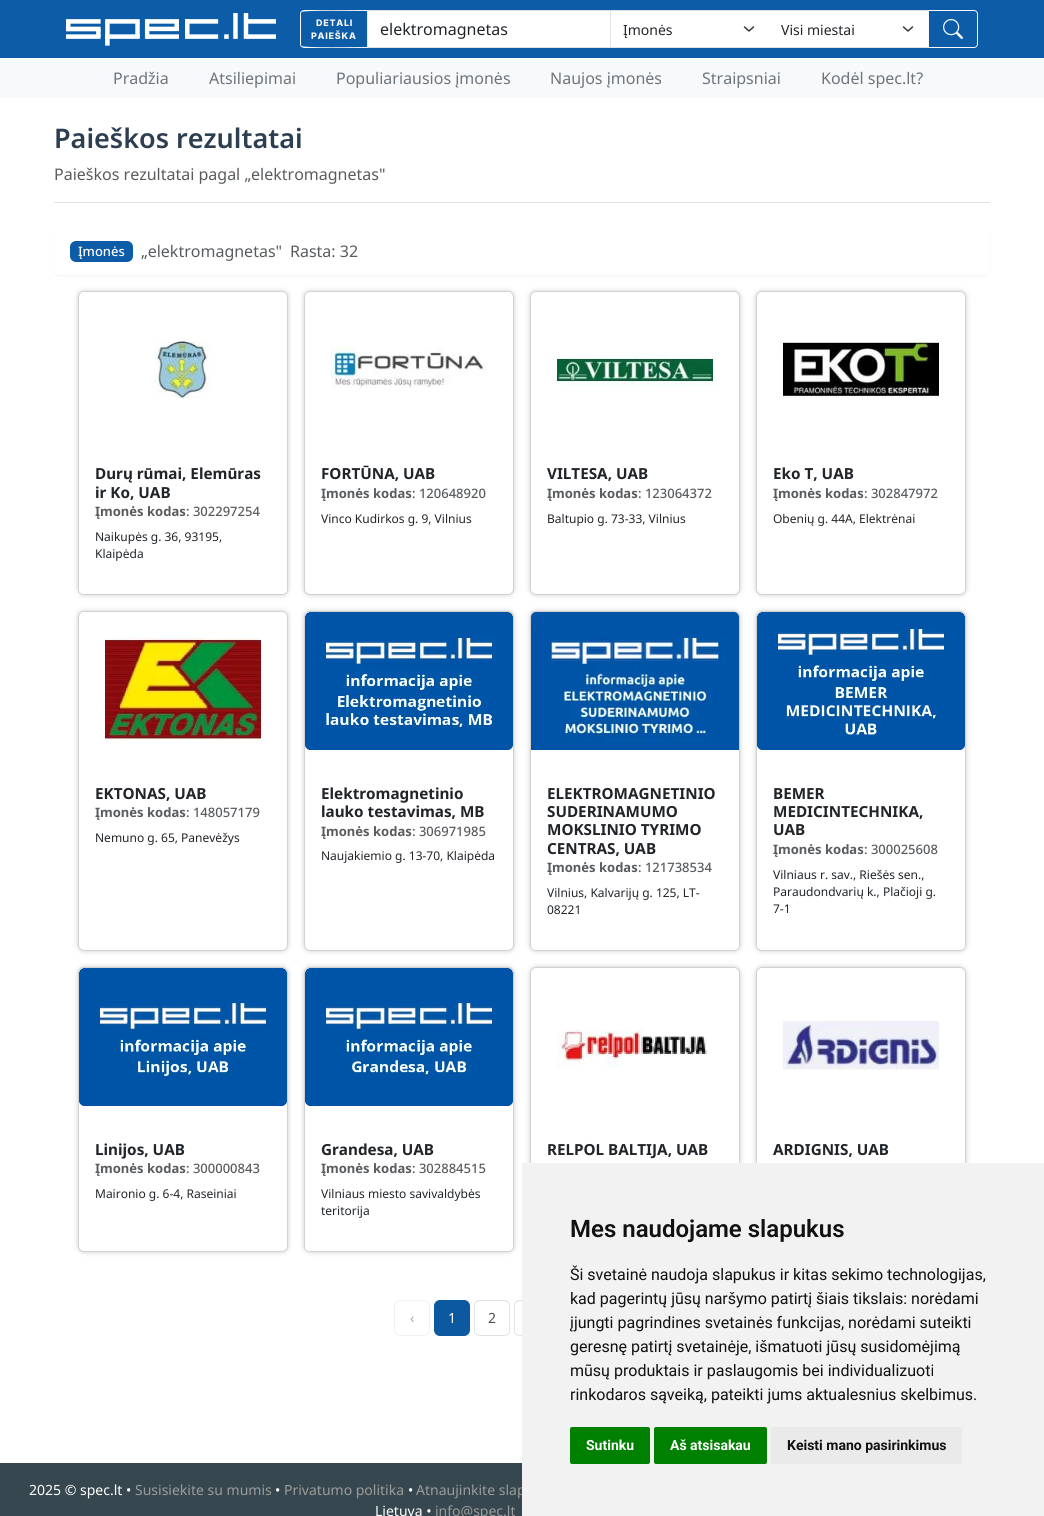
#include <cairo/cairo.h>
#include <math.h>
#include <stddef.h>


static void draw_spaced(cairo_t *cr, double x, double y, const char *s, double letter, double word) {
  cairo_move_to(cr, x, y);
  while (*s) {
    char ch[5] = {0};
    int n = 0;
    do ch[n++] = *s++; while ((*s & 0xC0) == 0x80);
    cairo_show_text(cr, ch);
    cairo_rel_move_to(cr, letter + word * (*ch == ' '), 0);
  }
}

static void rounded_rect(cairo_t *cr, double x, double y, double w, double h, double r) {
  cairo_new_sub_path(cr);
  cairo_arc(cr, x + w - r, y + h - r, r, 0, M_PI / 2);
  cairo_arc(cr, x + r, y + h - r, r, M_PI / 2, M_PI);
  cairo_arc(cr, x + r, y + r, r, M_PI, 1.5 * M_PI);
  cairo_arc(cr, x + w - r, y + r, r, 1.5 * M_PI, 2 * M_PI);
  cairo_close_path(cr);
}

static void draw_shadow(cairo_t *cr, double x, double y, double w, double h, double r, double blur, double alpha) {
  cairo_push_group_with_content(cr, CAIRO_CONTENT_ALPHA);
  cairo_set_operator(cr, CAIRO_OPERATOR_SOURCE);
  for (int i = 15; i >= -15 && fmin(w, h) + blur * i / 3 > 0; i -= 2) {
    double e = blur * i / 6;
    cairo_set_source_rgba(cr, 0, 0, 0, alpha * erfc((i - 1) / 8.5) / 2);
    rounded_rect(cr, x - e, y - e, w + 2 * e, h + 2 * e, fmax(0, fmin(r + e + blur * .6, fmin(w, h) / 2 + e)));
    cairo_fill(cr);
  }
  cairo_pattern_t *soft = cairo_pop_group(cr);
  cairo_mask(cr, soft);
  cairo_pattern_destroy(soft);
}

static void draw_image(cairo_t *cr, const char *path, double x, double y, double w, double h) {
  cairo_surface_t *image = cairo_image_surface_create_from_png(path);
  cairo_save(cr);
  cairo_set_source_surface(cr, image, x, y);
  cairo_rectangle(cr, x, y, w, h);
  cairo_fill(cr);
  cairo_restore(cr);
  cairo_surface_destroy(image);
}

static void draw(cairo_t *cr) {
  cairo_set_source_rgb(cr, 1, 1, 1);
  cairo_paint(cr);
  cairo_set_source_rgb(cr, 12 / 255.0, 92 / 255.0, 167 / 255.0);
  cairo_rectangle(cr, 0, 0, 1044, 58);
  cairo_fill(cr);
  draw_image(cr, "images/1.png", 66, 13, 210, 33);
  cairo_set_source_rgb(cr, 222 / 255.0, 226 / 255.0, 230 / 255.0);
  cairo_rectangle(cr, 367, 10, 244, 1);
  cairo_fill(cr);
  cairo_rectangle(cr, 367, 47, 244, 1);
  cairo_fill(cr);
  cairo_rectangle(cr, 367, 10, 1, 38);
  cairo_fill(cr);
  cairo_set_source_rgb(cr, 248 / 255.0, 249 / 255.0, 250 / 255.0);
  cairo_new_path(cr);
  cairo_move_to(cr, 304, 10);
  cairo_line_to(cr, 301, 11);
  cairo_line_to(cr, 302, 12);
  cairo_curve_to(cr, 303, 10, 360, 11, 367, 11);
  cairo_line_to(cr, 368, 10);
  cairo_close_path(cr);
  cairo_fill(cr);
  cairo_set_source_rgba(cr, 1, 1, 1, 0.2);
  cairo_new_path(cr);
  cairo_move_to(cr, 368, 10);
  cairo_line_to(cr, 367, 11);
  cairo_line_to(cr, 367, 47);
  cairo_line_to(cr, 368, 48);
  cairo_close_path(cr);
  cairo_fill(cr);
  cairo_set_source_rgb(cr, 248 / 255.0, 249 / 255.0, 250 / 255.0);
  cairo_new_path(cr);
  cairo_move_to(cr, 368, 48);
  cairo_line_to(cr, 367, 47);
  cairo_curve_to(cr, 360, 47, 303, 48, 302, 46);
  cairo_line_to(cr, 301, 47);
  cairo_line_to(cr, 304, 48);
  cairo_close_path(cr);
  cairo_fill(cr);
  cairo_new_path(cr);
  cairo_move_to(cr, 300, 14);
  cairo_line_to(cr, 300, 44);
  cairo_curve_to(cr, 300, 45, 300.5, 46, 301, 47);
  cairo_line_to(cr, 302, 46);
  cairo_curve_to(cr, 301, 46, 301, 45, 301, 44);
  cairo_line_to(cr, 301, 14);
  cairo_curve_to(cr, 301, 13, 301, 12, 302, 12);
  cairo_line_to(cr, 301, 11);
  cairo_curve_to(cr, 300.5, 12, 300, 13, 300, 14);
  cairo_close_path(cr);
  cairo_fill(cr);
  cairo_set_source_rgb(cr, 1, 1, 1);
  cairo_rectangle(cr, 368, 11, 242, 36);
  cairo_fill(cr);
  cairo_rectangle(cr, 611, 11, 158, 36);
  cairo_fill(cr);
  cairo_new_path(cr);
  cairo_move_to(cr, 744.5, 27);
  cairo_line_to(cr, 749, 31);
  cairo_line_to(cr, 753.5, 27);
  cairo_set_source_rgb(cr, 52 / 255.0, 58 / 255.0, 64 / 255.0);
  cairo_set_line_width(cr, 1.5);
  cairo_set_line_cap(cr, CAIRO_LINE_CAP_ROUND);
  cairo_set_line_join(cr, CAIRO_LINE_JOIN_ROUND);
  cairo_stroke(cr);
  cairo_rectangle(cr, 610.5, 10.5, 159, 37);
  cairo_set_source_rgb(cr, 222 / 255.0, 226 / 255.0, 230 / 255.0);
  cairo_set_line_width(cr, 1);
  cairo_set_line_cap(cr, CAIRO_LINE_CAP_BUTT);
  cairo_set_line_join(cr, CAIRO_LINE_JOIN_MITER);
  cairo_stroke(cr);
  cairo_set_source_rgb(cr, 1, 1, 1);
  cairo_rectangle(cr, 769, 11, 159, 36);
  cairo_fill(cr);
  cairo_new_path(cr);
  cairo_move_to(cr, 903.5, 27);
  cairo_line_to(cr, 908, 31);
  cairo_line_to(cr, 912.5, 27);
  cairo_set_source_rgb(cr, 52 / 255.0, 58 / 255.0, 64 / 255.0);
  cairo_set_line_width(cr, 1.5);
  cairo_set_line_cap(cr, CAIRO_LINE_CAP_ROUND);
  cairo_set_line_join(cr, CAIRO_LINE_JOIN_ROUND);
  cairo_stroke(cr);
  cairo_set_source_rgb(cr, 222 / 255.0, 226 / 255.0, 230 / 255.0);
  cairo_rectangle(cr, 769, 10, 160, 1);
  cairo_fill(cr);
  cairo_rectangle(cr, 769, 47, 160, 1);
  cairo_fill(cr);
  cairo_new_path(cr);
  cairo_move_to(cr, 928.5, 10.5);
  cairo_line_to(cr, 974, 10.5);
  cairo_curve_to(cr, 976, 10.5, 977.5, 12, 977.5, 14);
  cairo_line_to(cr, 977.5, 44);
  cairo_curve_to(cr, 977.5, 46, 976, 47.5, 974, 47.5);
  cairo_line_to(cr, 928.5, 47.5);
  cairo_close_path(cr);
  cairo_set_source_rgb(cr, 248 / 255.0, 249 / 255.0, 250 / 255.0);
  cairo_set_line_width(cr, 1);
  cairo_set_line_cap(cr, CAIRO_LINE_CAP_BUTT);
  cairo_set_line_join(cr, CAIRO_LINE_JOIN_MITER);
  cairo_stroke(cr);
  draw_image(cr, "images/2.png", 943, 19, 20, 20);
  cairo_rectangle(cr, 0, 58, 1044, 40);
  cairo_fill(cr);
  cairo_set_source_rgb(cr, 222 / 255.0, 226 / 255.0, 230 / 255.0);
  cairo_rectangle(cr, 54, 202, 936, 1);
  cairo_fill(cr);
  cairo_set_source_rgb(cr, 0, 0, 0);
  draw_shadow(cr, 54, 228, 936, 48, 6, 1, 0.05);
  cairo_set_source_rgb(cr, 1, 1, 1);
  rounded_rect(cr, 54, 227, 936, 48, 6);
  cairo_fill(cr);
  cairo_set_source_rgb(cr, 12 / 255.0, 92 / 255.0, 167 / 255.0);
  rounded_rect(cr, 70, 241, 63, 21, 6);
  cairo_fill(cr);
  cairo_set_source_rgb(cr, 204 / 255.0, 204 / 255.0, 204 / 255.0);
  draw_shadow(cr, 78, 291, 210, 304, 6, 2.5, 1);
  cairo_set_source_rgb(cr, 1, 1, 1);
  rounded_rect(cr, 78.5, 291.5, 209, 303, 5.5);
  cairo_fill_preserve(cr);
  cairo_set_source_rgb(cr, 210 / 255.0, 210 / 255.0, 210 / 255.0);
  cairo_stroke(cr);
  draw_image(cr, "images/3.png", 155, 339, 55, 59);
  cairo_set_source_rgba(cr, 1, 1, 1, 0.9);
  cairo_new_path(cr);
  cairo_move_to(cr, 79, 448);
  cairo_line_to(cr, 287, 448);
  cairo_line_to(cr, 287, 589);
  cairo_curve_to(cr, 287, 592, 285, 594, 282, 594);
  cairo_line_to(cr, 84, 594);
  cairo_curve_to(cr, 81, 594, 79, 592, 79, 589);
  cairo_close_path(cr);
  cairo_fill(cr);
  cairo_set_source_rgb(cr, 204 / 255.0, 204 / 255.0, 204 / 255.0);
  draw_shadow(cr, 304, 291, 210, 304, 6, 2.5, 1);
  cairo_set_source_rgb(cr, 1, 1, 1);
  rounded_rect(cr, 304.5, 291.5, 209, 303, 5.5);
  cairo_fill_preserve(cr);
  cairo_set_source_rgb(cr, 210 / 255.0, 210 / 255.0, 210 / 255.0);
  cairo_stroke(cr);
  draw_image(cr, "images/4.png", 331, 347, 156, 42);
  cairo_set_source_rgb(cr, 204 / 255.0, 204 / 255.0, 204 / 255.0);
  draw_shadow(cr, 530, 291, 210, 304, 6, 2.5, 1);
  cairo_set_source_rgb(cr, 1, 1, 1);
  rounded_rect(cr, 530.5, 291.5, 209, 303, 5.5);
  cairo_fill_preserve(cr);
  cairo_set_source_rgb(cr, 210 / 255.0, 210 / 255.0, 210 / 255.0);
  cairo_stroke(cr);
  draw_image(cr, "images/5.png", 557, 354, 156, 32);
  cairo_set_source_rgb(cr, 204 / 255.0, 204 / 255.0, 204 / 255.0);
  draw_shadow(cr, 756, 291, 210, 304, 6, 2.5, 1);
  cairo_set_source_rgb(cr, 1, 1, 1);
  rounded_rect(cr, 756.5, 291.5, 209, 303, 5.5);
  cairo_fill_preserve(cr);
  cairo_set_source_rgb(cr, 210 / 255.0, 210 / 255.0, 210 / 255.0);
  cairo_stroke(cr);
  draw_image(cr, "images/6.png", 783, 342, 156, 56);
  cairo_set_source_rgb(cr, 204 / 255.0, 204 / 255.0, 204 / 255.0);
  draw_shadow(cr, 78, 611, 210, 340, 6, 2.5, 1);
  cairo_set_source_rgb(cr, 1, 1, 1);
  rounded_rect(cr, 78.5, 611.5, 209, 339, 5.5);
  cairo_fill_preserve(cr);
  cairo_set_source_rgb(cr, 210 / 255.0, 210 / 255.0, 210 / 255.0);
  cairo_stroke(cr);
  draw_image(cr, "images/7.png", 105, 636, 156, 105);
  cairo_set_source_rgb(cr, 204 / 255.0, 204 / 255.0, 204 / 255.0);
  draw_shadow(cr, 304, 611, 210, 340, 6, 2.5, 1);
  cairo_set_source_rgb(cr, 1, 1, 1);
  rounded_rect(cr, 304.5, 611.5, 209, 339, 5.5);
  cairo_fill_preserve(cr);
  cairo_set_source_rgb(cr, 210 / 255.0, 210 / 255.0, 210 / 255.0);
  cairo_stroke(cr);
  draw_image(cr, "images/8.png", 305, 612, 208, 138);
  cairo_set_source_rgb(cr, 204 / 255.0, 204 / 255.0, 204 / 255.0);
  draw_shadow(cr, 530, 611, 210, 340, 6, 2.5, 1);
  cairo_set_source_rgb(cr, 1, 1, 1);
  rounded_rect(cr, 530.5, 611.5, 209, 339, 5.5);
  cairo_fill_preserve(cr);
  cairo_set_source_rgb(cr, 210 / 255.0, 210 / 255.0, 210 / 255.0);
  cairo_stroke(cr);
  draw_image(cr, "images/9.png", 531, 612, 208, 138);
  cairo_set_source_rgba(cr, 1, 1, 1, 0.9);
  cairo_new_path(cr);
  cairo_move_to(cr, 531, 768);
  cairo_line_to(cr, 739, 768);
  cairo_line_to(cr, 739, 945);
  cairo_curve_to(cr, 739, 948, 737, 950, 734, 950);
  cairo_line_to(cr, 536, 950);
  cairo_curve_to(cr, 533, 950, 531, 948, 531, 945);
  cairo_close_path(cr);
  cairo_fill(cr);
  cairo_set_source_rgb(cr, 204 / 255.0, 204 / 255.0, 204 / 255.0);
  draw_shadow(cr, 756, 611, 210, 340, 6, 2.5, 1);
  cairo_set_source_rgb(cr, 1, 1, 1);
  rounded_rect(cr, 756.5, 611.5, 209, 339, 5.5);
  cairo_fill_preserve(cr);
  cairo_set_source_rgb(cr, 210 / 255.0, 210 / 255.0, 210 / 255.0);
  cairo_stroke(cr);
  draw_image(cr, "images/10.png", 757, 612, 208, 138);
  cairo_save(cr);
  rounded_rect(cr, 757, 612, 208, 338, 5);
  cairo_clip(cr);
  cairo_set_source_rgba(cr, 1, 1, 1, 0.9);
  cairo_rectangle(cr, 757, 768, 208, 181);
  cairo_fill(cr);
  cairo_restore(cr);
  cairo_set_source_rgb(cr, 204 / 255.0, 204 / 255.0, 204 / 255.0);
  draw_shadow(cr, 78, 967, 210, 285, 6, 2.5, 1);
  cairo_set_source_rgb(cr, 1, 1, 1);
  rounded_rect(cr, 78.5, 967.5, 209, 284, 5.5);
  cairo_fill_preserve(cr);
  cairo_set_source_rgb(cr, 210 / 255.0, 210 / 255.0, 210 / 255.0);
  cairo_stroke(cr);
  draw_image(cr, "images/11.png", 79, 968, 208, 138);
  cairo_set_source_rgb(cr, 204 / 255.0, 204 / 255.0, 204 / 255.0);
  draw_shadow(cr, 304, 967, 210, 285, 6, 2.5, 1);
  cairo_set_source_rgb(cr, 1, 1, 1);
  rounded_rect(cr, 304.5, 967.5, 209, 284, 5.5);
  cairo_fill_preserve(cr);
  cairo_set_source_rgb(cr, 210 / 255.0, 210 / 255.0, 210 / 255.0);
  cairo_stroke(cr);
  draw_image(cr, "images/12.png", 305, 968, 208, 138);
  cairo_set_source_rgba(cr, 1, 1, 1, 0.9);
  cairo_new_path(cr);
  cairo_move_to(cr, 305, 1124);
  cairo_line_to(cr, 513, 1124);
  cairo_line_to(cr, 513, 1246);
  cairo_curve_to(cr, 513, 1249, 511, 1251, 508, 1251);
  cairo_line_to(cr, 310, 1251);
  cairo_curve_to(cr, 307, 1251, 305, 1249, 305, 1246);
  cairo_close_path(cr);
  cairo_fill(cr);
  cairo_set_source_rgb(cr, 204 / 255.0, 204 / 255.0, 204 / 255.0);
  draw_shadow(cr, 530, 967, 210, 285, 6, 2.5, 1);
  cairo_set_source_rgb(cr, 1, 1, 1);
  rounded_rect(cr, 530.5, 967.5, 209, 284, 5.5);
  cairo_fill_preserve(cr);
  cairo_set_source_rgb(cr, 210 / 255.0, 210 / 255.0, 210 / 255.0);
  cairo_stroke(cr);
  draw_image(cr, "images/13.png", 557, 1029, 150, 39);
  cairo_set_source_rgb(cr, 204 / 255.0, 204 / 255.0, 204 / 255.0);
  draw_shadow(cr, 756, 967, 210, 285, 6, 2.5, 1);
  cairo_set_source_rgb(cr, 1, 1, 1);
  rounded_rect(cr, 756.5, 967.5, 209, 284, 5.5);
  cairo_fill_preserve(cr);
  cairo_set_source_rgb(cr, 210 / 255.0, 210 / 255.0, 210 / 255.0);
  cairo_stroke(cr);
  draw_image(cr, "images/14.png", 783, 1021, 156, 49);
  rounded_rect(cr, 394.5, 1300.5, 35, 35, 5.5);
  cairo_set_source_rgb(cr, 239 / 255.0, 241 / 255.0, 243 / 255.0);
  cairo_stroke(cr);
  cairo_set_source_rgb(cr, 12 / 255.0, 89 / 255.0, 162 / 255.0);
  rounded_rect(cr, 434.5, 1300.5, 35, 35, 5.5);
  cairo_fill_preserve(cr);
  cairo_stroke(cr);
  rounded_rect(cr, 474.5, 1300.5, 35, 35, 5.5);
  cairo_set_source_rgb(cr, 222 / 255.0, 226 / 255.0, 230 / 255.0);
  cairo_stroke(cr);
  rounded_rect(cr, 514.5, 1300.5, 35, 35, 5.5);
  cairo_stroke(cr);
  cairo_set_source_rgb(cr, 55 / 255.0, 71 / 255.0, 79 / 255.0);
  cairo_rectangle(cr, 0, 1463, 522, 53);
  cairo_fill(cr);
  cairo_select_font_face(cr, "Inter ExtraBold", CAIRO_FONT_SLANT_NORMAL, CAIRO_FONT_WEIGHT_NORMAL);
  cairo_set_font_size(cr, 9);
  cairo_set_source_rgb(cr, 248 / 255.0, 249 / 255.0, 250 / 255.0);
  draw_spaced(cr, 316, 26, "DETALI", 0.75, 0);
  draw_spaced(cr, 311, 39, "PAIEŠKA", 0.75, 0);
  cairo_select_font_face(cr, "Noto Sans", CAIRO_FONT_SLANT_NORMAL, CAIRO_FONT_WEIGHT_NORMAL);
  cairo_set_font_size(cr, 16);
  cairo_set_source_rgb(cr, 33 / 255.0, 37 / 255.0, 41 / 255.0);
  cairo_move_to(cr, 380, 35);
  cairo_show_text(cr, "elektromagnetas");
  cairo_set_font_size(cr, 14);
  cairo_move_to(cr, 623, 35);
  cairo_show_text(cr, "Įmonės");
  cairo_move_to(cr, 781, 35);
  cairo_show_text(cr, "Visi miestai");
  cairo_set_font_size(cr, 16);
  cairo_set_source_rgb(cr, 108 / 255.0, 117 / 255.0, 125 / 255.0);
  cairo_move_to(cr, 113, 84);
  cairo_show_text(cr, "Pradžia");
  cairo_move_to(cr, 209, 84);
  cairo_show_text(cr, "Atsiliepimai");
  cairo_move_to(cr, 336, 84);
  cairo_show_text(cr, "Populiariausios įmonės");
  cairo_move_to(cr, 550, 84);
  cairo_show_text(cr, "Naujos įmonės");
  cairo_move_to(cr, 702, 84);
  cairo_show_text(cr, "Straipsniai");
  cairo_move_to(cr, 821, 84);
  cairo_show_text(cr, "Kodėl spec.lt?");
  cairo_select_font_face(cr, "Noto Sans SemiBold", CAIRO_FONT_SLANT_NORMAL, CAIRO_FONT_WEIGHT_NORMAL);
  cairo_set_font_size(cr, 27);
  cairo_set_source_rgb(cr, 44 / 255.0, 62 / 255.0, 80 / 255.0);
  cairo_move_to(cr, 54, 148);
  cairo_show_text(cr, "Paieškos rezultatai");
  cairo_select_font_face(cr, "Noto Sans", CAIRO_FONT_SLANT_NORMAL, CAIRO_FONT_WEIGHT_NORMAL);
  cairo_set_font_size(cr, 16);
  cairo_set_source_rgb(cr, 89 / 255.0, 92 / 255.0, 95 / 255.0);
  cairo_move_to(cr, 54, 180);
  cairo_show_text(cr, "Paieškos rezultatai pagal „elektromagnetas\"");
  cairo_select_font_face(cr, "Noto Sans Medium", CAIRO_FONT_SLANT_NORMAL, CAIRO_FONT_WEIGHT_NORMAL);
  cairo_set_font_size(cr, 13);
  cairo_set_source_rgb(cr, 1, 1, 1);
  cairo_move_to(cr, 78, 256);
  cairo_show_text(cr, "Įmonės");
  cairo_select_font_face(cr, "Noto Sans", CAIRO_FONT_SLANT_NORMAL, CAIRO_FONT_WEIGHT_NORMAL);
  cairo_set_font_size(cr, 16);
  cairo_set_source_rgb(cr, 89 / 255.0, 92 / 255.0, 95 / 255.0);
  cairo_move_to(cr, 141, 257);
  cairo_show_text(cr, "„elektromagnetas\"");
  cairo_move_to(cr, 290, 257);
  cairo_show_text(cr, "Rasta: 32");
  cairo_select_font_face(cr, "Noto Sans", CAIRO_FONT_SLANT_NORMAL, CAIRO_FONT_WEIGHT_BOLD);
  cairo_set_font_size(cr, 15.25);
  cairo_set_source_rgb(cr, 33 / 255.0, 37 / 255.0, 41 / 255.0);
  cairo_move_to(cr, 95, 479);
  cairo_show_text(cr, "Durų rūmai, Elemūras");
  cairo_move_to(cr, 95, 498);
  cairo_show_text(cr, "ir Ko, UAB");
  cairo_set_font_size(cr, 13);
  cairo_set_source_rgb(cr, 89 / 255.0, 92 / 255.0, 95 / 255.0);
  cairo_move_to(cr, 95, 516);
  cairo_show_text(cr, "Įmonės kodas");
  cairo_select_font_face(cr, "Noto Sans Medium", CAIRO_FONT_SLANT_NORMAL, CAIRO_FONT_WEIGHT_NORMAL);
  cairo_move_to(cr, 186, 516);
  cairo_show_text(cr, ": 302297254");
  cairo_select_font_face(cr, "Noto Sans", CAIRO_FONT_SLANT_NORMAL, CAIRO_FONT_WEIGHT_NORMAL);
  cairo_set_font_size(cr, 12);
  cairo_set_source_rgb(cr, 33 / 255.0, 37 / 255.0, 41 / 255.0);
  cairo_move_to(cr, 95, 541);
  cairo_show_text(cr, "Naikupės g. 36, 93195,");
  cairo_move_to(cr, 95, 558);
  cairo_show_text(cr, "Klaipėda");
  cairo_select_font_face(cr, "Noto Sans", CAIRO_FONT_SLANT_NORMAL, CAIRO_FONT_WEIGHT_BOLD);
  cairo_set_font_size(cr, 15.25);
  cairo_move_to(cr, 321, 479);
  cairo_show_text(cr, "FORTŪNA, UAB");
  cairo_set_font_size(cr, 13);
  cairo_set_source_rgb(cr, 89 / 255.0, 92 / 255.0, 95 / 255.0);
  cairo_move_to(cr, 321, 498);
  cairo_show_text(cr, "Įmonės kodas");
  cairo_select_font_face(cr, "Noto Sans Medium", CAIRO_FONT_SLANT_NORMAL, CAIRO_FONT_WEIGHT_NORMAL);
  cairo_move_to(cr, 412, 498);
  cairo_show_text(cr, ": 120648920");
  cairo_select_font_face(cr, "Noto Sans", CAIRO_FONT_SLANT_NORMAL, CAIRO_FONT_WEIGHT_NORMAL);
  cairo_set_font_size(cr, 12);
  cairo_set_source_rgb(cr, 33 / 255.0, 37 / 255.0, 41 / 255.0);
  cairo_move_to(cr, 321, 523);
  cairo_show_text(cr, "Vinco Kudirkos g. 9, Vilnius");
  cairo_select_font_face(cr, "Noto Sans", CAIRO_FONT_SLANT_NORMAL, CAIRO_FONT_WEIGHT_BOLD);
  cairo_set_font_size(cr, 15.25);
  cairo_move_to(cr, 547, 479);
  cairo_show_text(cr, "VILTESA, UAB");
  cairo_set_font_size(cr, 13);
  cairo_set_source_rgb(cr, 89 / 255.0, 92 / 255.0, 95 / 255.0);
  cairo_move_to(cr, 547, 498);
  cairo_show_text(cr, "Įmonės kodas");
  cairo_select_font_face(cr, "Noto Sans Medium", CAIRO_FONT_SLANT_NORMAL, CAIRO_FONT_WEIGHT_NORMAL);
  cairo_move_to(cr, 638, 498);
  cairo_show_text(cr, ": 123064372");
  cairo_select_font_face(cr, "Noto Sans", CAIRO_FONT_SLANT_NORMAL, CAIRO_FONT_WEIGHT_NORMAL);
  cairo_set_font_size(cr, 12);
  cairo_set_source_rgb(cr, 33 / 255.0, 37 / 255.0, 41 / 255.0);
  cairo_move_to(cr, 547, 523);
  cairo_show_text(cr, "Baltupio g. 73-33, Vilnius");
  cairo_select_font_face(cr, "Noto Sans", CAIRO_FONT_SLANT_NORMAL, CAIRO_FONT_WEIGHT_BOLD);
  cairo_set_font_size(cr, 15.25);
  cairo_move_to(cr, 773, 479);
  cairo_show_text(cr, "Eko T, UAB");
  cairo_set_font_size(cr, 13);
  cairo_set_source_rgb(cr, 89 / 255.0, 92 / 255.0, 95 / 255.0);
  cairo_move_to(cr, 773, 498);
  cairo_show_text(cr, "Įmonės kodas");
  cairo_select_font_face(cr, "Noto Sans Medium", CAIRO_FONT_SLANT_NORMAL, CAIRO_FONT_WEIGHT_NORMAL);
  cairo_move_to(cr, 864, 498);
  cairo_show_text(cr, ": 302847972");
  cairo_select_font_face(cr, "Noto Sans", CAIRO_FONT_SLANT_NORMAL, CAIRO_FONT_WEIGHT_NORMAL);
  cairo_set_font_size(cr, 12);
  cairo_set_source_rgb(cr, 33 / 255.0, 37 / 255.0, 41 / 255.0);
  cairo_move_to(cr, 773, 523);
  cairo_show_text(cr, "Obenių g. 44A, Elektrėnai");
  cairo_select_font_face(cr, "Noto Sans", CAIRO_FONT_SLANT_NORMAL, CAIRO_FONT_WEIGHT_BOLD);
  cairo_set_font_size(cr, 15.25);
  cairo_move_to(cr, 95, 799);
  cairo_show_text(cr, "EKTONAS, UAB");
  cairo_set_font_size(cr, 13);
  cairo_set_source_rgb(cr, 89 / 255.0, 92 / 255.0, 95 / 255.0);
  cairo_move_to(cr, 95, 817);
  cairo_show_text(cr, "Įmonės kodas");
  cairo_select_font_face(cr, "Noto Sans Medium", CAIRO_FONT_SLANT_NORMAL, CAIRO_FONT_WEIGHT_NORMAL);
  cairo_move_to(cr, 186, 817);
  cairo_show_text(cr, ": 148057179");
  cairo_select_font_face(cr, "Noto Sans", CAIRO_FONT_SLANT_NORMAL, CAIRO_FONT_WEIGHT_NORMAL);
  cairo_set_font_size(cr, 12);
  cairo_set_source_rgb(cr, 33 / 255.0, 37 / 255.0, 41 / 255.0);
  cairo_move_to(cr, 95, 842);
  cairo_show_text(cr, "Nemuno g. 65, Panevėžys");
  cairo_select_font_face(cr, "Noto Sans", CAIRO_FONT_SLANT_NORMAL, CAIRO_FONT_WEIGHT_BOLD);
  cairo_set_font_size(cr, 15.25);
  cairo_move_to(cr, 321, 799);
  cairo_show_text(cr, "Elektromagnetinio");
  cairo_move_to(cr, 321, 817);
  cairo_show_text(cr, "lauko testavimas, MB");
  cairo_set_font_size(cr, 13);
  cairo_set_source_rgb(cr, 89 / 255.0, 92 / 255.0, 95 / 255.0);
  cairo_move_to(cr, 321, 836);
  cairo_show_text(cr, "Įmonės kodas");
  cairo_select_font_face(cr, "Noto Sans Medium", CAIRO_FONT_SLANT_NORMAL, CAIRO_FONT_WEIGHT_NORMAL);
  cairo_move_to(cr, 412, 836);
  cairo_show_text(cr, ": 306971985");
  cairo_select_font_face(cr, "Noto Sans", CAIRO_FONT_SLANT_NORMAL, CAIRO_FONT_WEIGHT_NORMAL);
  cairo_set_font_size(cr, 12);
  cairo_set_source_rgb(cr, 33 / 255.0, 37 / 255.0, 41 / 255.0);
  cairo_move_to(cr, 321, 860);
  cairo_show_text(cr, "Naujakiemio g. 13-70, Klaipėda");
  cairo_select_font_face(cr, "Noto Sans", CAIRO_FONT_SLANT_NORMAL, CAIRO_FONT_WEIGHT_BOLD);
  cairo_set_font_size(cr, 15.25);
  cairo_move_to(cr, 547, 799);
  cairo_show_text(cr, "ELEKTROMAGNETINIO");
  cairo_move_to(cr, 547, 817);
  cairo_show_text(cr, "SUDERINAMUMO");
  cairo_move_to(cr, 547, 835);
  cairo_show_text(cr, "MOKSLINIO TYRIMO");
  cairo_move_to(cr, 547, 854);
  cairo_show_text(cr, "CENTRAS, UAB");
  cairo_set_font_size(cr, 13);
  cairo_set_source_rgb(cr, 89 / 255.0, 92 / 255.0, 95 / 255.0);
  cairo_move_to(cr, 547, 872);
  cairo_show_text(cr, "Įmonės kodas");
  cairo_select_font_face(cr, "Noto Sans Medium", CAIRO_FONT_SLANT_NORMAL, CAIRO_FONT_WEIGHT_NORMAL);
  cairo_move_to(cr, 638, 872);
  cairo_show_text(cr, ": 121738534");
  cairo_select_font_face(cr, "Noto Sans", CAIRO_FONT_SLANT_NORMAL, CAIRO_FONT_WEIGHT_NORMAL);
  cairo_set_font_size(cr, 12);
  cairo_set_source_rgb(cr, 33 / 255.0, 37 / 255.0, 41 / 255.0);
  cairo_move_to(cr, 547, 897);
  cairo_show_text(cr, "Vilnius, Kalvarijų g. 125, LT-");
  cairo_move_to(cr, 547, 914);
  cairo_show_text(cr, "08221");
  cairo_select_font_face(cr, "Noto Sans", CAIRO_FONT_SLANT_NORMAL, CAIRO_FONT_WEIGHT_BOLD);
  cairo_set_font_size(cr, 15.25);
  cairo_move_to(cr, 773, 799);
  cairo_show_text(cr, "BEMER");
  cairo_move_to(cr, 773, 817);
  cairo_show_text(cr, "MEDICINTECHNIKA,");
  cairo_move_to(cr, 773, 835);
  cairo_show_text(cr, "UAB");
  cairo_set_font_size(cr, 13);
  cairo_set_source_rgb(cr, 89 / 255.0, 92 / 255.0, 95 / 255.0);
  cairo_move_to(cr, 773, 854);
  cairo_show_text(cr, "Įmonės kodas");
  cairo_select_font_face(cr, "Noto Sans Medium", CAIRO_FONT_SLANT_NORMAL, CAIRO_FONT_WEIGHT_NORMAL);
  cairo_move_to(cr, 864, 854);
  cairo_show_text(cr, ": 300025608");
  cairo_select_font_face(cr, "Noto Sans", CAIRO_FONT_SLANT_NORMAL, CAIRO_FONT_WEIGHT_NORMAL);
  cairo_set_font_size(cr, 12);
  cairo_set_source_rgb(cr, 33 / 255.0, 37 / 255.0, 41 / 255.0);
  cairo_move_to(cr, 773, 879);
  cairo_show_text(cr, "Vilniaus r. sav., Riešės sen.,");
  cairo_move_to(cr, 773, 896);
  cairo_show_text(cr, "Paraudondvarių k., Plačioji g.");
  cairo_move_to(cr, 773, 913);
  cairo_show_text(cr, "7-1");
  cairo_select_font_face(cr, "Noto Sans", CAIRO_FONT_SLANT_NORMAL, CAIRO_FONT_WEIGHT_BOLD);
  cairo_set_font_size(cr, 15.25);
  cairo_move_to(cr, 95, 1155);
  cairo_show_text(cr, "Linijos, UAB");
  cairo_set_font_size(cr, 13);
  cairo_set_source_rgb(cr, 89 / 255.0, 92 / 255.0, 95 / 255.0);
  cairo_move_to(cr, 95, 1173);
  cairo_show_text(cr, "Įmonės kodas");
  cairo_select_font_face(cr, "Noto Sans Medium", CAIRO_FONT_SLANT_NORMAL, CAIRO_FONT_WEIGHT_NORMAL);
  cairo_move_to(cr, 186, 1173);
  cairo_show_text(cr, ": 300000843");
  cairo_select_font_face(cr, "Noto Sans", CAIRO_FONT_SLANT_NORMAL, CAIRO_FONT_WEIGHT_NORMAL);
  cairo_set_font_size(cr, 12);
  cairo_set_source_rgb(cr, 33 / 255.0, 37 / 255.0, 41 / 255.0);
  cairo_move_to(cr, 95, 1198);
  cairo_show_text(cr, "Maironio g. 6-4, Raseiniai");
  cairo_select_font_face(cr, "Noto Sans", CAIRO_FONT_SLANT_NORMAL, CAIRO_FONT_WEIGHT_BOLD);
  cairo_set_font_size(cr, 15.25);
  cairo_move_to(cr, 321, 1155);
  cairo_show_text(cr, "Grandesa, UAB");
  cairo_set_font_size(cr, 13);
  cairo_set_source_rgb(cr, 89 / 255.0, 92 / 255.0, 95 / 255.0);
  cairo_move_to(cr, 321, 1173);
  cairo_show_text(cr, "Įmonės kodas");
  cairo_select_font_face(cr, "Noto Sans Medium", CAIRO_FONT_SLANT_NORMAL, CAIRO_FONT_WEIGHT_NORMAL);
  cairo_move_to(cr, 412, 1173);
  cairo_show_text(cr, ": 302884515");
  cairo_select_font_face(cr, "Noto Sans", CAIRO_FONT_SLANT_NORMAL, CAIRO_FONT_WEIGHT_NORMAL);
  cairo_set_font_size(cr, 12);
  cairo_set_source_rgb(cr, 33 / 255.0, 37 / 255.0, 41 / 255.0);
  cairo_move_to(cr, 321, 1198);
  cairo_show_text(cr, "Vilniaus miesto savivaldybės");
  cairo_move_to(cr, 321, 1215);
  cairo_show_text(cr, "teritorija");
  cairo_select_font_face(cr, "Noto Sans", CAIRO_FONT_SLANT_NORMAL, CAIRO_FONT_WEIGHT_BOLD);
  cairo_set_font_size(cr, 15.25);
  cairo_move_to(cr, 547, 1155);
  cairo_show_text(cr, "RELPOL BALTIJA, UAB");
  cairo_move_to(cr, 773, 1155);
  cairo_show_text(cr, "ARDIGNIS, UAB");
  cairo_select_font_face(cr, "Noto Sans", CAIRO_FONT_SLANT_NORMAL, CAIRO_FONT_WEIGHT_NORMAL);
  cairo_set_font_size(cr, 14);
  cairo_set_source_rgb(cr, 164 / 255.0, 168 / 255.0, 171 / 255.0);
  cairo_move_to(cr, 410, 1323);
  cairo_show_text(cr, "‹");
  cairo_set_source_rgb(cr, 1, 1, 1);
  cairo_move_to(cr, 448, 1323);
  cairo_show_text(cr, "1");
  cairo_set_source_rgb(cr, 73 / 255.0, 80 / 255.0, 87 / 255.0);
  cairo_move_to(cr, 488, 1323);
  cairo_show_text(cr, "2");
  cairo_set_source_rgb(cr, 1, 1, 1);
  cairo_move_to(cr, 29, 1495);
  cairo_show_text(cr, "2025 © spec.lt •");
  cairo_set_source_rgb(cr, 155 / 255.0, 155 / 255.0, 155 / 255.0);
  cairo_move_to(cr, 135, 1495);
  cairo_show_text(cr, "Susisiekite su mumis");
  cairo_set_source_rgb(cr, 1, 1, 1);
  cairo_move_to(cr, 275, 1495);
  cairo_show_text(cr, "•");
  cairo_set_source_rgb(cr, 155 / 255.0, 155 / 255.0, 155 / 255.0);
  cairo_move_to(cr, 284, 1495);
  cairo_show_text(cr, "Privatumo politika");
  cairo_set_source_rgb(cr, 1, 1, 1);
  cairo_move_to(cr, 408, 1495);
  cairo_show_text(cr, "•");
  cairo_set_source_rgb(cr, 155 / 255.0, 155 / 255.0, 155 / 255.0);
  cairo_move_to(cr, 416, 1495);
  cairo_show_text(cr, "Atnaujinkite slap");
  cairo_set_source_rgb(cr, 1, 1, 1);
  cairo_move_to(cr, 375, 1516);
  cairo_show_text(cr, "Lietuva •");
  cairo_set_source_rgb(cr, 155 / 255.0, 155 / 255.0, 155 / 255.0);
  cairo_move_to(cr, 435, 1516);
  cairo_show_text(cr, "info@spec.lt");
  cairo_set_source_rgb(cr, 242 / 255.0, 242 / 255.0, 242 / 255.0);
  cairo_rectangle(cr, 522, 1163, 522, 353);
  cairo_fill(cr);
  cairo_select_font_face(cr, "Roboto SemiBold", CAIRO_FONT_SLANT_NORMAL, CAIRO_FONT_WEIGHT_NORMAL);
  cairo_set_font_size(cr, 24);
  cairo_set_source_rgb(cr, 17 / 255.0, 17 / 255.0, 17 / 255.0);
  cairo_move_to(cr, 570, 1237);
  cairo_show_text(cr, "Mes naudojame slapukus");
  cairo_select_font_face(cr, "Roboto", CAIRO_FONT_SLANT_NORMAL, CAIRO_FONT_WEIGHT_NORMAL);
  cairo_set_font_size(cr, 16);
  cairo_move_to(cr, 570, 1280);
  cairo_show_text(cr, "Ši svetainė naudoja slapukus ir kitas sekimo technologijas,");
  cairo_move_to(cr, 570, 1304);
  cairo_show_text(cr, "kad pagerintų jūsų naršymo patirtį šiais tikslais: norėdami");
  cairo_move_to(cr, 570, 1328);
  cairo_show_text(cr, "įjungti pagrindines svetainės funkcijas, norėdami suteikti");
  cairo_move_to(cr, 570, 1352);
  cairo_show_text(cr, "geresnę patirtį svetainėje, išmatuoti jūsų susidomėjimą");
  cairo_move_to(cr, 570, 1376);
  cairo_show_text(cr, "mūsų produktais ir paslaugomis bei individualizuoti");
  cairo_move_to(cr, 570, 1400);
  cairo_show_text(cr, "rinkodaros sąveiką, pateikti jums aktualesnius skelbimus.");
  cairo_set_source_rgb(cr, 0, 128 / 255.0, 0);
  rounded_rect(cr, 570, 1427, 80, 37, 2);
  cairo_fill(cr);
  cairo_select_font_face(cr, "Roboto", CAIRO_FONT_SLANT_NORMAL, CAIRO_FONT_WEIGHT_BOLD);
  cairo_set_font_size(cr, 14);
  cairo_set_source_rgb(cr, 1, 1, 1);
  cairo_move_to(cr, 586, 1450);
  cairo_show_text(cr, "Sutinku");
  cairo_set_source_rgb(cr, 0, 128 / 255.0, 0);
  rounded_rect(cr, 654, 1427, 113, 37, 2);
  cairo_fill(cr);
  cairo_set_source_rgb(cr, 1, 1, 1);
  cairo_move_to(cr, 670, 1450);
  cairo_show_text(cr, "Aš atsisakau");
  cairo_set_source_rgb(cr, 234 / 255.0, 234 / 255.0, 234 / 255.0);
  rounded_rect(cr, 771, 1427, 191, 37, 2);
  cairo_fill(cr);
  cairo_set_source_rgb(cr, 17 / 255.0, 17 / 255.0, 17 / 255.0);
  cairo_move_to(cr, 787, 1450);
  cairo_show_text(cr, "Keisti mano pasirinkimus");
}

int main(void) {
  cairo_surface_t *surface = cairo_image_surface_create(CAIRO_FORMAT_RGB24, 1044, 1516);
  cairo_t *cr = cairo_create(surface);
  cairo_font_options_t *options = cairo_font_options_create();
  cairo_font_options_set_hint_metrics(options, CAIRO_HINT_METRICS_OFF);
  cairo_font_options_set_hint_style(options, CAIRO_HINT_STYLE_NONE);
  cairo_set_font_options(cr, options);
  cairo_set_miter_limit(cr, 4);
  draw(cr);
  cairo_surface_write_to_png(surface, "out.png");
  cairo_font_options_destroy(options);
  cairo_destroy(cr);
  cairo_surface_destroy(surface);
  return 0;
}
